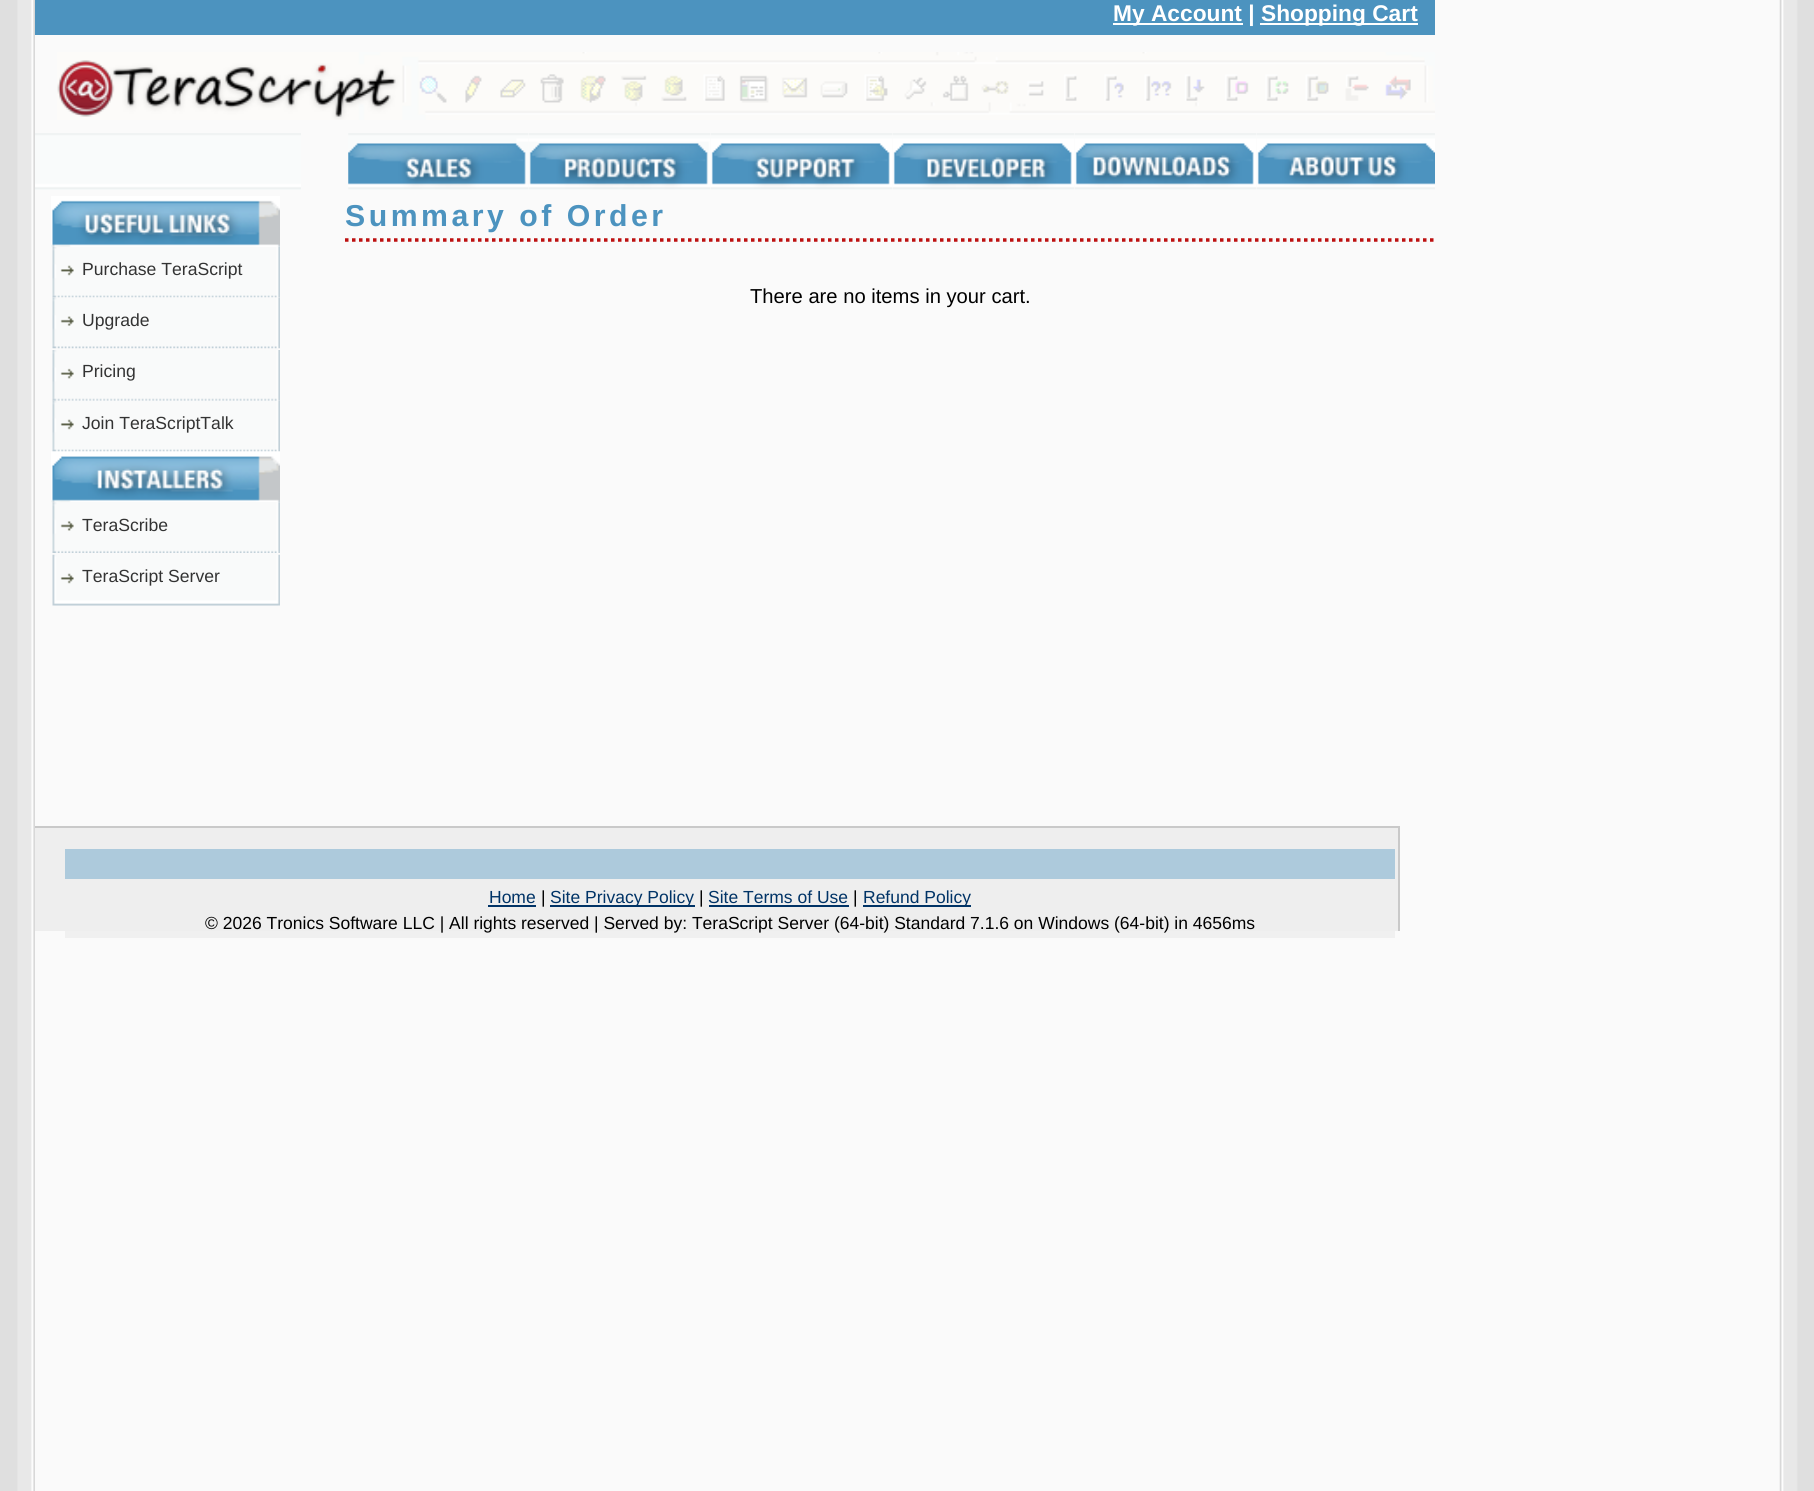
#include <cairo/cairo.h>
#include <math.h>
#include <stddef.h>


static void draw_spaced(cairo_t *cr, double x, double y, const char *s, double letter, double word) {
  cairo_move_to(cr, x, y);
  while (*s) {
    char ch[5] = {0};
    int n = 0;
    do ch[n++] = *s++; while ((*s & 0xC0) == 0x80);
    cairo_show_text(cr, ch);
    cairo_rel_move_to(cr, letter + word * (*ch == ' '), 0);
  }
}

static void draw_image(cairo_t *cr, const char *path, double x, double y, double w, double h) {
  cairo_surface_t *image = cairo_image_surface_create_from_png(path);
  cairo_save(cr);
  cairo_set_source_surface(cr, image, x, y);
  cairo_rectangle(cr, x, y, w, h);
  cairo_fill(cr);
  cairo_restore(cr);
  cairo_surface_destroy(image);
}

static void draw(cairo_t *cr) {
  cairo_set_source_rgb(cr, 250 / 255.0, 250 / 255.0, 250 / 255.0);
  cairo_paint(cr);
  draw_image(cr, "images/1.png", 1779, 0, 35, 1491);
  draw_image(cr, "images/2.png", 0, 0, 35, 1491);
  cairo_set_source_rgb(cr, 76 / 255.0, 147 / 255.0, 191 / 255.0);
  cairo_rectangle(cr, 35, 0, 1400, 35);
  cairo_fill(cr);
  cairo_set_source_rgb(cr, 1, 1, 1);
  cairo_rectangle(cr, 1113, 23, 130, 2);
  cairo_fill(cr);
  cairo_rectangle(cr, 1260, 23, 158, 2);
  cairo_fill(cr);
  draw_image(cr, "images/3.png", 57, 52, 1378, 68);
  draw_image(cr, "images/4.png", 35, 133, 266, 57);
  draw_image(cr, "images/5.png", 51, 196, 229, 51);
  draw_image(cr, "images/6.png", 52, 247, 228, 51);
  draw_image(cr, "images/7.png", 52, 297, 228, 52);
  draw_image(cr, "images/8.png", 52, 350, 228, 51);
  draw_image(cr, "images/9.png", 52, 400, 228, 52);
  draw_image(cr, "images/10.png", 51, 451, 229, 52);
  draw_image(cr, "images/11.png", 52, 502, 228, 51);
  draw_image(cr, "images/12.png", 52, 554, 228, 52);
  draw_image(cr, "images/13.png", 348, 133, 180, 57);
  draw_image(cr, "images/14.png", 528, 133, 182, 57);
  draw_image(cr, "images/15.png", 710, 133, 182, 57);
  draw_image(cr, "images/16.png", 892, 133, 182, 57);
  draw_image(cr, "images/17.png", 1074, 133, 182, 57);
  draw_image(cr, "images/18.png", 1256, 133, 179, 57);
  cairo_new_path(cr);
  cairo_move_to(cr, 345, 240);
  cairo_line_to(cr, 1435, 240);
  cairo_set_source_rgb(cr, 189 / 255.0, 16 / 255.0, 16 / 255.0);
  cairo_set_line_width(cr, 3.5);
  cairo_set_dash(cr, (double[]){3.5, 3.5}, 2, 0);
  cairo_stroke(cr);
  cairo_set_source_rgb(cr, 238 / 255.0, 238 / 255.0, 238 / 255.0);
  cairo_rectangle(cr, 35, 828, 1363, 103);
  cairo_fill(cr);
  cairo_set_source_rgb(cr, 201 / 255.0, 201 / 255.0, 201 / 255.0);
  cairo_rectangle(cr, 35, 826, 1365, 2);
  cairo_fill(cr);
  cairo_rectangle(cr, 1398, 826, 2, 105);
  cairo_fill(cr);
  cairo_set_source_rgb(cr, 173 / 255.0, 202 / 255.0, 220 / 255.0);
  cairo_rectangle(cr, 65, 849, 1330, 30);
  cairo_fill(cr);
  cairo_set_source_rgb(cr, 240 / 255.0, 240 / 255.0, 240 / 255.0);
  cairo_rectangle(cr, 65, 931, 1330, 7);
  cairo_fill(cr);
  cairo_set_source_rgb(cr, 0, 51 / 255.0, 102 / 255.0);
  cairo_rectangle(cr, 488, 905, 48, 2);
  cairo_fill(cr);
  cairo_rectangle(cr, 550, 905, 145, 2);
  cairo_fill(cr);
  cairo_rectangle(cr, 709, 905, 140, 2);
  cairo_fill(cr);
  cairo_rectangle(cr, 863, 905, 108, 2);
  cairo_fill(cr);
  cairo_select_font_face(cr, "Liberation Sans", CAIRO_FONT_SLANT_NORMAL, CAIRO_FONT_WEIGHT_BOLD);
  cairo_set_font_size(cr, 22.75);
  cairo_set_source_rgb(cr, 1, 1, 1);
  cairo_move_to(cr, 1113, 21);
  cairo_show_text(cr, "My Account |");
  cairo_move_to(cr, 1261, 21);
  cairo_show_text(cr, "Shopping Cart");
  cairo_select_font_face(cr, "Liberation Sans", CAIRO_FONT_SLANT_NORMAL, CAIRO_FONT_WEIGHT_NORMAL);
  cairo_set_font_size(cr, 17.6);
  cairo_set_source_rgb(cr, 51 / 255.0, 51 / 255.0, 51 / 255.0);
  cairo_move_to(cr, 82, 275);
  cairo_show_text(cr, "Purchase TeraScript");
  cairo_move_to(cr, 82, 326);
  cairo_show_text(cr, "Upgrade");
  cairo_move_to(cr, 82, 377);
  cairo_show_text(cr, "Pricing");
  cairo_move_to(cr, 82, 429);
  cairo_show_text(cr, "Join TeraScriptTalk");
  cairo_move_to(cr, 82, 531);
  cairo_show_text(cr, "TeraScribe");
  cairo_move_to(cr, 82, 582);
  cairo_show_text(cr, "TeraScript Server");
  cairo_select_font_face(cr, "Liberation Sans", CAIRO_FONT_SLANT_NORMAL, CAIRO_FONT_WEIGHT_BOLD);
  cairo_set_font_size(cr, 30.25);
  cairo_set_source_rgb(cr, 76 / 255.0, 147 / 255.0, 191 / 255.0);
  draw_spaced(cr, 345, 226, "Summary of Order", 3.5, 0);
  cairo_select_font_face(cr, "Liberation Sans", CAIRO_FONT_SLANT_NORMAL, CAIRO_FONT_WEIGHT_NORMAL);
  cairo_set_font_size(cr, 20.2);
  cairo_set_source_rgb(cr, 0, 0, 0);
  cairo_move_to(cr, 750, 303);
  cairo_show_text(cr, "There are no items in your cart.");
  cairo_set_font_size(cr, 17.5);
  cairo_set_source_rgb(cr, 0, 51 / 255.0, 102 / 255.0);
  cairo_move_to(cr, 489, 903);
  cairo_show_text(cr, "Home");
  cairo_set_source_rgb(cr, 0, 0, 0);
  cairo_move_to(cr, 541, 903);
  cairo_show_text(cr, "|");
  cairo_set_source_rgb(cr, 0, 51 / 255.0, 102 / 255.0);
  cairo_move_to(cr, 550, 903);
  cairo_show_text(cr, "Site Privacy Policy");
  cairo_set_source_rgb(cr, 0, 0, 0);
  cairo_move_to(cr, 699, 903);
  cairo_show_text(cr, "|");
  cairo_set_source_rgb(cr, 0, 51 / 255.0, 102 / 255.0);
  cairo_move_to(cr, 708, 903);
  cairo_show_text(cr, "Site Terms of Use");
  cairo_set_source_rgb(cr, 0, 0, 0);
  cairo_move_to(cr, 853, 903);
  cairo_show_text(cr, "|");
  cairo_set_source_rgb(cr, 0, 51 / 255.0, 102 / 255.0);
  cairo_move_to(cr, 863, 903);
  cairo_show_text(cr, "Refund Policy");
  cairo_set_source_rgb(cr, 0, 0, 0);
  cairo_move_to(cr, 205, 929);
  cairo_show_text(cr, "© 2026 Tronics Software LLC | All rights reserved | Served by: TeraScript Server (64-bit) Standard 7.1.6 on Windows (64-bit) in 4656ms");
}

int main(void) {
  cairo_surface_t *surface = cairo_image_surface_create(CAIRO_FORMAT_RGB24, 1814, 1491);
  cairo_t *cr = cairo_create(surface);
  cairo_font_options_t *options = cairo_font_options_create();
  cairo_font_options_set_hint_metrics(options, CAIRO_HINT_METRICS_OFF);
  cairo_font_options_set_hint_style(options, CAIRO_HINT_STYLE_NONE);
  cairo_set_font_options(cr, options);
  cairo_set_miter_limit(cr, 4);
  draw(cr);
  cairo_surface_write_to_png(surface, "out.png");
  cairo_font_options_destroy(options);
  cairo_destroy(cr);
  cairo_surface_destroy(surface);
  return 0;
}
